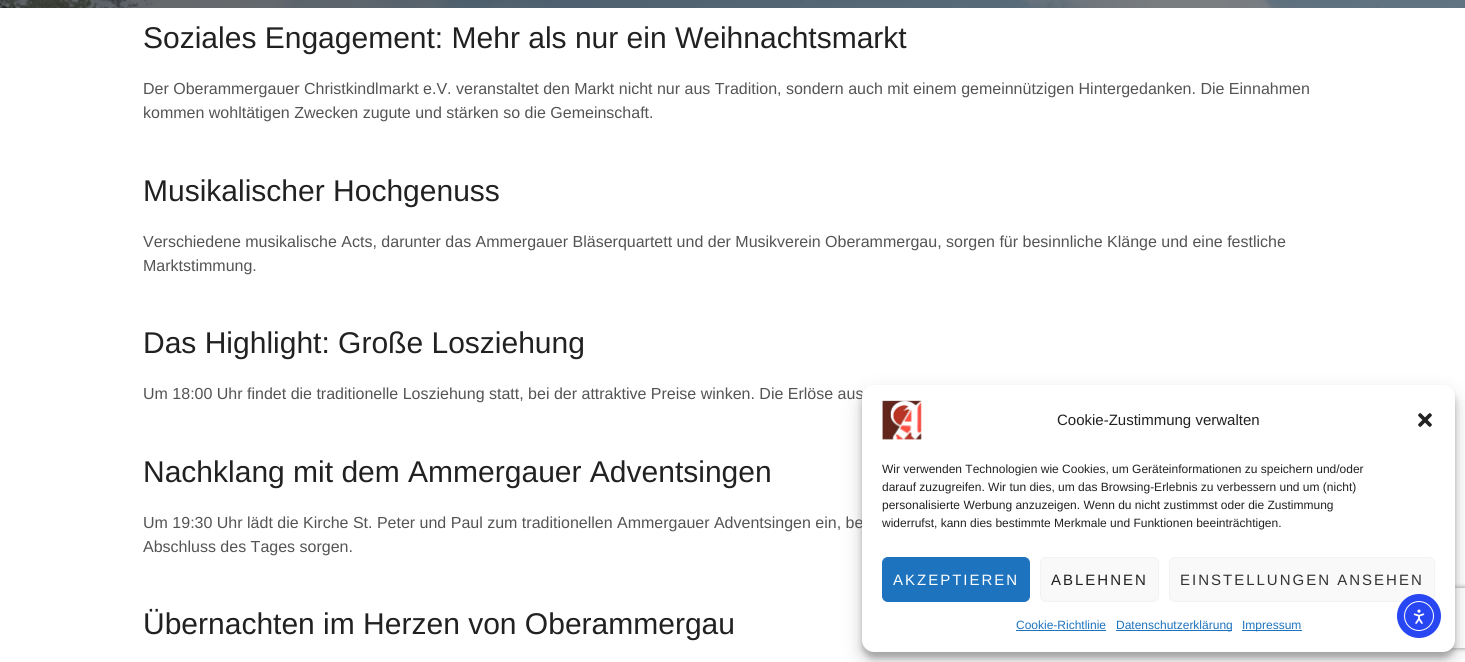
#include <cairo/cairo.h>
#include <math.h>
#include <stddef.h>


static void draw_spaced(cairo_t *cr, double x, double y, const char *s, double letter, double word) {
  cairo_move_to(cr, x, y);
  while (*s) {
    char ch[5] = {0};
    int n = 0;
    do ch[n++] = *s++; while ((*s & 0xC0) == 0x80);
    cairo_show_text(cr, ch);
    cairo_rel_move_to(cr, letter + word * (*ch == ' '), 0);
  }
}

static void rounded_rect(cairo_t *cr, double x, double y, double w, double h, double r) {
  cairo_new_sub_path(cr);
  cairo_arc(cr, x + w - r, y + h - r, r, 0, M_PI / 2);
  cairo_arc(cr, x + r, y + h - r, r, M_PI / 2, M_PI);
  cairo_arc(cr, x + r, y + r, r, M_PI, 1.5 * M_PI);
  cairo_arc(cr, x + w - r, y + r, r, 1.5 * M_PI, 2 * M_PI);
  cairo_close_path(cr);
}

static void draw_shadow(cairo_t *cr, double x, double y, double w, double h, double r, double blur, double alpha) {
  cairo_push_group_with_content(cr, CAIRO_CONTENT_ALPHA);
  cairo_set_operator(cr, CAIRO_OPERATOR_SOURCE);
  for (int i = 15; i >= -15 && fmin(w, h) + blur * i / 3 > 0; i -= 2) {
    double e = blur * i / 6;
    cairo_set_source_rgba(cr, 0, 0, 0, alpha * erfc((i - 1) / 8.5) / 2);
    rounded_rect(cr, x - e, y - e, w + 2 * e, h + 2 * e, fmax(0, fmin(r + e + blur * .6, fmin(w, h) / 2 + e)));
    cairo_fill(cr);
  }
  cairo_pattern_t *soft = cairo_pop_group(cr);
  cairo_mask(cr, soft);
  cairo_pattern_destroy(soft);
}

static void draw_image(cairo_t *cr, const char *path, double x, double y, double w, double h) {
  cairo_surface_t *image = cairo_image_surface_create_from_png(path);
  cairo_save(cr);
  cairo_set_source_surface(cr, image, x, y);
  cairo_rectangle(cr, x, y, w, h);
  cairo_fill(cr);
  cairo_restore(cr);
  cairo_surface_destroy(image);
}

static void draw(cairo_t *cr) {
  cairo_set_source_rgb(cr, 1, 1, 1);
  cairo_paint(cr);
  draw_image(cr, "images/1.png", 0, 0, 1465, 8);
  cairo_set_source_rgb(cr, 0, 0, 0);
  draw_shadow(cr, 862, 391, 593, 267, 12, 3, 0.23);
  draw_shadow(cr, 862, 395, 593, 267, 12, 10, 0.19);
  cairo_save(cr);
  cairo_set_fill_rule(cr, CAIRO_FILL_RULE_EVEN_ODD);
  cairo_new_path(cr);
  cairo_move_to(cr, 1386, 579);
  cairo_line_to(cr, 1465, 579);
  cairo_line_to(cr, 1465, 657);
  cairo_line_to(cr, 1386, 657);
  cairo_close_path(cr);
  cairo_move_to(cr, 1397, 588);
  cairo_line_to(cr, 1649, 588);
  cairo_curve_to(cr, 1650, 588, 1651, 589, 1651, 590);
  cairo_line_to(cr, 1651, 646);
  cairo_curve_to(cr, 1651, 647, 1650, 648, 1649, 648);
  cairo_line_to(cr, 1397, 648);
  cairo_curve_to(cr, 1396, 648, 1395, 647, 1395, 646);
  cairo_line_to(cr, 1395, 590);
  cairo_curve_to(cr, 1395, 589, 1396, 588, 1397, 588);
  cairo_close_path(cr);
  cairo_clip(cr);
  cairo_set_source_rgb(cr, 128 / 255.0, 128 / 255.0, 128 / 255.0);
  draw_shadow(cr, 1395, 588, 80, 60, 2, 2.5, 1);
  cairo_restore(cr);
  cairo_select_font_face(cr, "Liberation Sans", CAIRO_FONT_SLANT_NORMAL, CAIRO_FONT_WEIGHT_NORMAL);
  cairo_set_font_size(cr, 30);
  cairo_set_source_rgb(cr, 33 / 255.0, 33 / 255.0, 33 / 255.0);
  cairo_move_to(cr, 143, 48);
  cairo_show_text(cr, "Soziales Engagement: Mehr als nur ein Weihnachtsmarkt");
  cairo_set_font_size(cr, 16);
  cairo_set_source_rgb(cr, 84 / 255.0, 84 / 255.0, 84 / 255.0);
  cairo_move_to(cr, 143, 94);
  cairo_show_text(cr, "Der Oberammergauer Christkindlmarkt e.V. veranstaltet den Markt nicht nur aus Tradition, sondern auch mit einem gemeinnützigen Hintergedanken. Die Einnahmen");
  cairo_move_to(cr, 143, 118);
  cairo_show_text(cr, "kommen wohltätigen Zwecken zugute und stärken so die Gemeinschaft.");
  cairo_set_font_size(cr, 30);
  cairo_set_source_rgb(cr, 33 / 255.0, 33 / 255.0, 33 / 255.0);
  cairo_move_to(cr, 143, 201);
  cairo_show_text(cr, "Musikalischer Hochgenuss");
  cairo_set_font_size(cr, 16);
  cairo_set_source_rgb(cr, 84 / 255.0, 84 / 255.0, 84 / 255.0);
  cairo_move_to(cr, 143, 247);
  cairo_show_text(cr, "Verschiedene musikalische Acts, darunter das Ammergauer Bläserquartett und der Musikverein Oberammergau, sorgen für besinnliche Klänge und eine festliche");
  cairo_move_to(cr, 143, 271);
  cairo_show_text(cr, "Marktstimmung.");
  cairo_set_font_size(cr, 30);
  cairo_set_source_rgb(cr, 33 / 255.0, 33 / 255.0, 33 / 255.0);
  cairo_move_to(cr, 143, 353);
  cairo_show_text(cr, "Das Highlight: Große Losziehung");
  cairo_set_font_size(cr, 16);
  cairo_set_source_rgb(cr, 84 / 255.0, 84 / 255.0, 84 / 255.0);
  cairo_move_to(cr, 143, 399);
  cairo_show_text(cr, "Um 18:00 Uhr findet die traditionelle Losziehung statt, bei der attraktive Preise winken. Die Erlöse aus");
  cairo_set_font_size(cr, 30);
  cairo_set_source_rgb(cr, 33 / 255.0, 33 / 255.0, 33 / 255.0);
  cairo_move_to(cr, 143, 482);
  cairo_show_text(cr, "Nachklang mit dem Ammergauer Adventsingen");
  cairo_set_font_size(cr, 16);
  cairo_set_source_rgb(cr, 84 / 255.0, 84 / 255.0, 84 / 255.0);
  cairo_move_to(cr, 143, 528);
  cairo_show_text(cr, "Um 19:30 Uhr lädt die Kirche St. Peter und Paul zum traditionellen Ammergauer Adventsingen ein, be");
  cairo_move_to(cr, 143, 552);
  cairo_show_text(cr, "Abschluss des Tages sorgen.");
  cairo_set_font_size(cr, 30);
  cairo_set_source_rgb(cr, 33 / 255.0, 33 / 255.0, 33 / 255.0);
  cairo_move_to(cr, 143, 634);
  cairo_show_text(cr, "Übernachten im Herzen von Oberammergau");
  cairo_set_source_rgb(cr, 1, 1, 1);
  rounded_rect(cr, 862, 385, 593, 267, 12);
  cairo_fill(cr);
  draw_image(cr, "images/2.png", 882, 400, 40, 40);
  cairo_set_font_size(cr, 15);
  cairo_set_source_rgb(cr, 33 / 255.0, 33 / 255.0, 33 / 255.0);
  cairo_move_to(cr, 1057, 425);
  cairo_show_text(cr, "Cookie-Zustimmung verwalten");
  draw_image(cr, "images/3.png", 1418, 413, 14, 14);
  cairo_set_font_size(cr, 12);
  cairo_move_to(cr, 882, 473);
  cairo_show_text(cr, "Wir verwenden Technologien wie Cookies, um Geräteinformationen zu speichern und/oder");
  cairo_move_to(cr, 882, 491);
  cairo_show_text(cr, "darauf zuzugreifen. Wir tun dies, um das Browsing-Erlebnis zu verbessern und um (nicht)");
  cairo_move_to(cr, 882, 509);
  cairo_show_text(cr, "personalisierte Werbung anzuzeigen. Wenn du nicht zustimmst oder die Zustimmung");
  cairo_move_to(cr, 882, 527);
  cairo_show_text(cr, "widerrufst, kann dies bestimmte Merkmale und Funktionen beeinträchtigen.");
  cairo_set_source_rgb(cr, 30 / 255.0, 115 / 255.0, 190 / 255.0);
  rounded_rect(cr, 882.5, 557.5, 147, 44, 5.5);
  cairo_fill_preserve(cr);
  cairo_set_line_width(cr, 1);
  cairo_stroke(cr);
  cairo_set_font_size(cr, 15);
  cairo_set_source_rgb(cr, 1, 1, 1);
  draw_spaced(cr, 893, 585, "AKZEPTIEREN", 2, 0);
  cairo_set_source_rgb(cr, 249 / 255.0, 249 / 255.0, 249 / 255.0);
  rounded_rect(cr, 1040.5, 557.5, 118, 44, 5.5);
  cairo_fill_preserve(cr);
  cairo_set_source_rgb(cr, 242 / 255.0, 242 / 255.0, 242 / 255.0);
  cairo_stroke(cr);
  cairo_set_source_rgb(cr, 33 / 255.0, 33 / 255.0, 33 / 255.0);
  draw_spaced(cr, 1051, 585, "ABLEHNEN", 2, 0);
  cairo_set_source_rgb(cr, 249 / 255.0, 249 / 255.0, 249 / 255.0);
  rounded_rect(cr, 1169.5, 557.5, 265, 44, 5.5);
  cairo_fill_preserve(cr);
  cairo_set_source_rgb(cr, 242 / 255.0, 242 / 255.0, 242 / 255.0);
  cairo_stroke(cr);
  cairo_set_source_rgb(cr, 51 / 255.0, 51 / 255.0, 51 / 255.0);
  draw_spaced(cr, 1180, 585, "EINSTELLUNGEN ANSEHEN", 2, 0);
  cairo_set_font_size(cr, 12);
  cairo_set_source_rgb(cr, 30 / 255.0, 115 / 255.0, 190 / 255.0);
  cairo_move_to(cr, 1016, 629);
  cairo_show_text(cr, "Cookie-Richtlinie");
  cairo_rectangle(cr, 1016, 630, 90, 1);
  cairo_fill(cr);
  cairo_rectangle(cr, 1116, 630, 116, 1);
  cairo_fill(cr);
  cairo_move_to(cr, 1116, 629);
  cairo_show_text(cr, "Datenschutzerklärung");
  cairo_rectangle(cr, 1242, 630, 60, 1);
  cairo_fill(cr);
  cairo_move_to(cr, 1242, 629);
  cairo_show_text(cr, "Impressum");
  cairo_set_source_rgb(cr, 40 / 255.0, 71 / 255.0, 243 / 255.0);
  cairo_new_path(cr);
  cairo_arc(cr, 1419, 616, 22, 0, 2 * M_PI);
  cairo_fill(cr);
  cairo_arc(cr, 1419, 616, 14.5, 0, 2 * M_PI);
  cairo_set_source_rgb(cr, 1, 1, 1);
  cairo_stroke(cr);
  draw_image(cr, "images/4.png", 1413, 609, 12, 15);
}

int main(void) {
  cairo_surface_t *surface = cairo_image_surface_create(CAIRO_FORMAT_RGB24, 1465, 662);
  cairo_t *cr = cairo_create(surface);
  cairo_font_options_t *options = cairo_font_options_create();
  cairo_font_options_set_hint_metrics(options, CAIRO_HINT_METRICS_OFF);
  cairo_font_options_set_hint_style(options, CAIRO_HINT_STYLE_NONE);
  cairo_set_font_options(cr, options);
  cairo_set_miter_limit(cr, 4);
  draw(cr);
  cairo_surface_write_to_png(surface, "out.png");
  cairo_font_options_destroy(options);
  cairo_destroy(cr);
  cairo_surface_destroy(surface);
  return 0;
}
